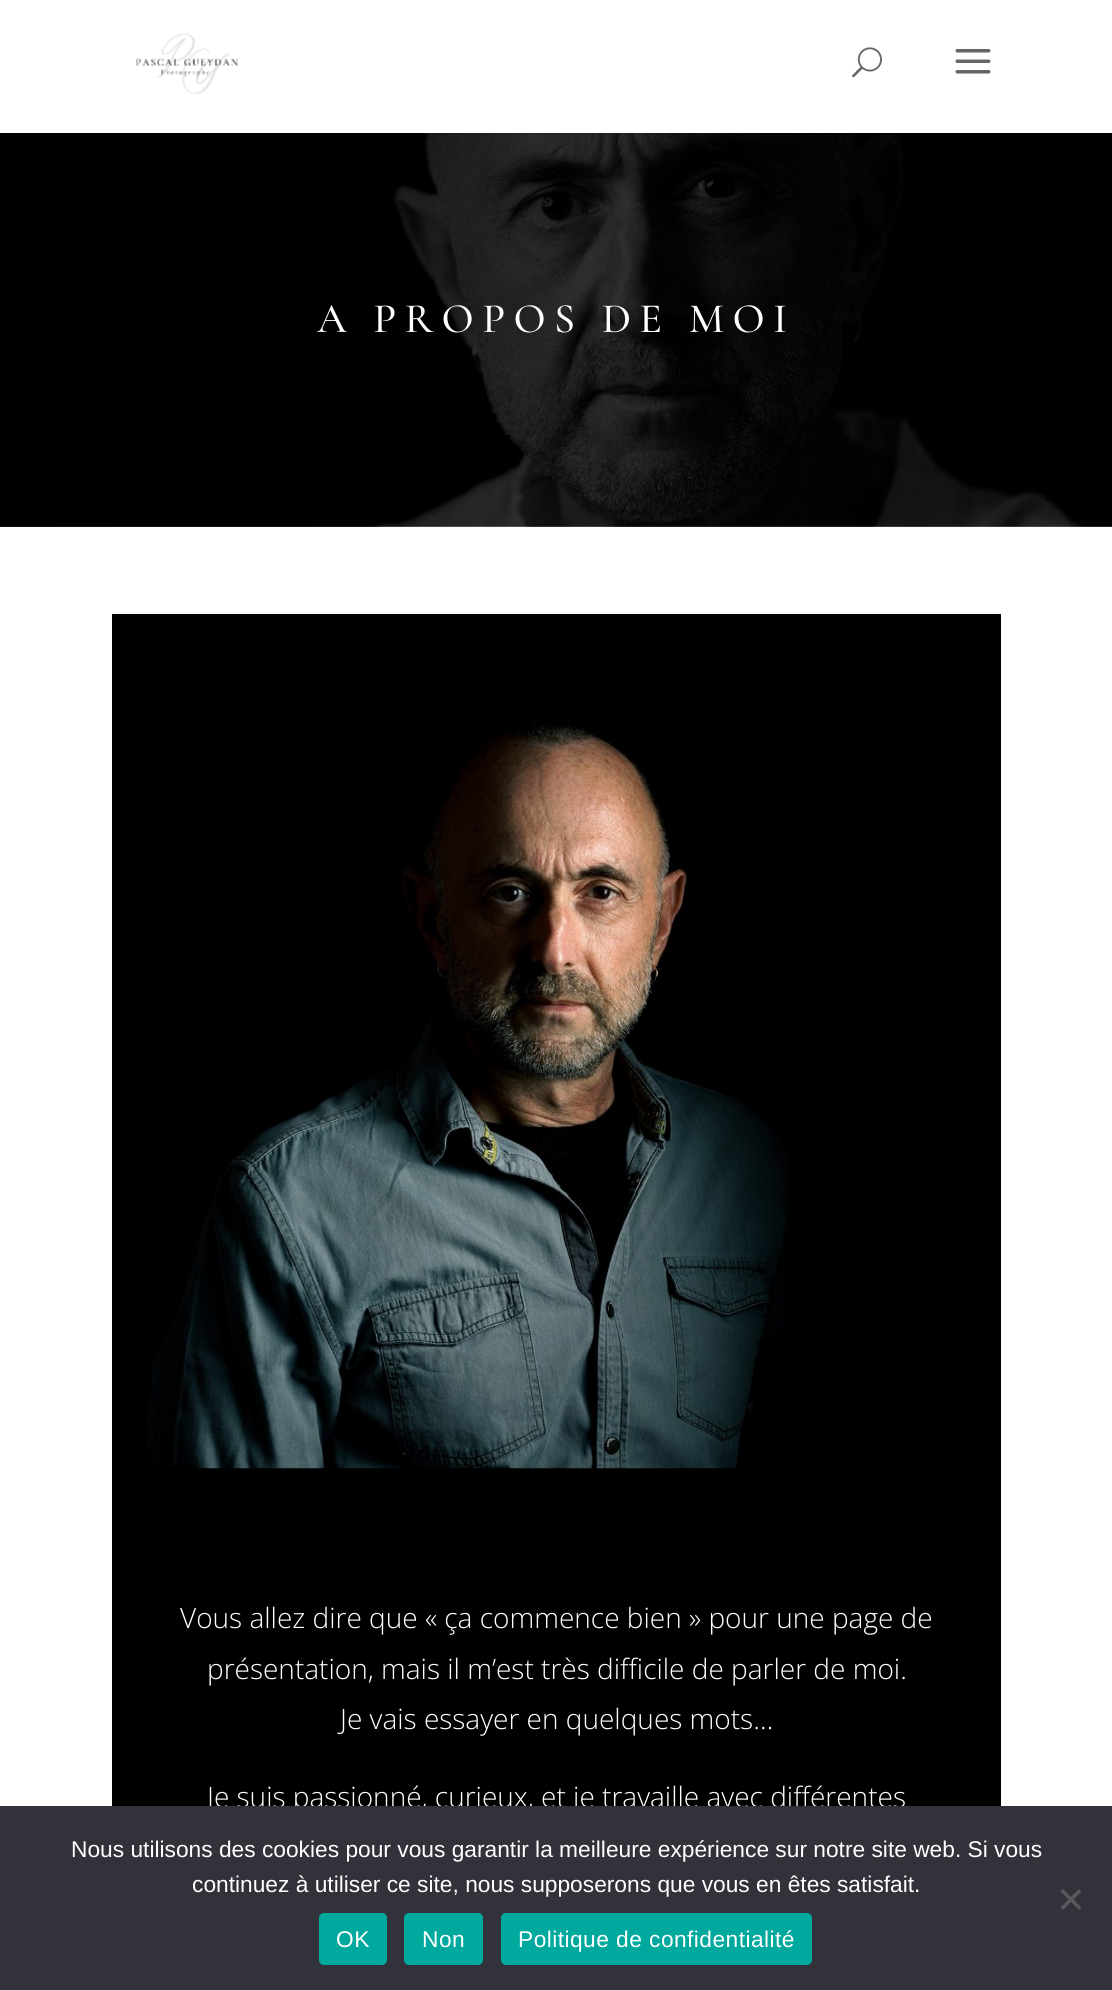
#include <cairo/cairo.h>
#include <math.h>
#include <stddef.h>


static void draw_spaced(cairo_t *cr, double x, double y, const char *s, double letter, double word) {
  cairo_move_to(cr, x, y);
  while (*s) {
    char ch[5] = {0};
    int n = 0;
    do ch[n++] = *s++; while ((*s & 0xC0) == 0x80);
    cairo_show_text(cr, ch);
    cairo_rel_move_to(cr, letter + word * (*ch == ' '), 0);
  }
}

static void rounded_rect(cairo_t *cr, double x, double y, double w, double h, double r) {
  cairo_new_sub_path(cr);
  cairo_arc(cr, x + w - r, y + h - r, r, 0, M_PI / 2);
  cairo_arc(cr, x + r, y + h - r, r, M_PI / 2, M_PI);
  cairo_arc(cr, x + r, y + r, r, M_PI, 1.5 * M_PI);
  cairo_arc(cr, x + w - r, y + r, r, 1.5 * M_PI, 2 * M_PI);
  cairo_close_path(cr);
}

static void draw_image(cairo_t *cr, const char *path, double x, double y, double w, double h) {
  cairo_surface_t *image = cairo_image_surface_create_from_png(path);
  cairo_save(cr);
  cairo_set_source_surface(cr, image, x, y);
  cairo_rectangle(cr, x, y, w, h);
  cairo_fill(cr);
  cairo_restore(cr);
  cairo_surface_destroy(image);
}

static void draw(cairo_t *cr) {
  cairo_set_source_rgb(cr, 1, 1, 1);
  cairo_paint(cr);
  draw_image(cr, "images/4.png", 0, 133, 1112, 394);
  cairo_set_source_rgba(cr, 0, 0, 0, 0.1);
  cairo_rectangle(cr, 433, 133, 235, 2);
  cairo_fill(cr);
  draw_image(cr, "images/1.png", 136, 33, 103, 62);
  draw_image(cr, "images/2.png", 852, 47, 30, 31);
  draw_image(cr, "images/3.png", 955, 49, 36, 25);
  cairo_set_source_rgb(cr, 0, 0, 0);
  cairo_rectangle(cr, 112, 614, 889, 1192);
  cairo_fill(cr);
  draw_image(cr, "images/5.png", 147, 719, 643, 750);
  cairo_select_font_face(cr, "Cormorant Garamond Medium", CAIRO_FONT_SLANT_NORMAL, CAIRO_FONT_WEIGHT_NORMAL);
  cairo_set_font_size(cr, 42);
  cairo_set_source_rgb(cr, 1, 1, 1);
  draw_spaced(cr, 317, 332, "A PROPOS DE MOI", 8.4, 0);
  cairo_select_font_face(cr, "Open Sans Light", CAIRO_FONT_SLANT_NORMAL, CAIRO_FONT_WEIGHT_NORMAL);
  cairo_set_font_size(cr, 28);
  cairo_move_to(cr, 180, 1628);
  cairo_show_text(cr, "Vous allez dire que « ça commence bien » pour une page de");
  cairo_move_to(cr, 207, 1679);
  cairo_show_text(cr, "présentation, mais il m’est très difficile de parler de moi.");
  cairo_move_to(cr, 340, 1729);
  cairo_show_text(cr, "Je vais essayer en quelques mots…");
  cairo_move_to(cr, 207, 1807);
  cairo_show_text(cr, "Je suis passionné, curieux, et je travaille avec différentes");
  cairo_set_source_rgb(cr, 50 / 255.0, 50 / 255.0, 58 / 255.0);
  cairo_rectangle(cr, 0, 1806, 1112, 184);
  cairo_fill(cr);
  cairo_select_font_face(cr, "Liberation Sans", CAIRO_FONT_SLANT_NORMAL, CAIRO_FONT_WEIGHT_NORMAL);
  cairo_set_font_size(cr, 22.75);
  cairo_set_source_rgb(cr, 1, 1, 1);
  cairo_move_to(cr, 71, 1857);
  cairo_show_text(cr, "Nous utilisons des cookies pour vous garantir la meilleure expérience sur notre site web. Si vous");
  cairo_move_to(cr, 192, 1892);
  cairo_show_text(cr, "continuez à utiliser ce site, nous supposerons que vous en êtes satisfait.");
  cairo_set_source_rgb(cr, 89 / 255.0, 89 / 255.0, 93 / 255.0);
  cairo_new_path(cr);
  cairo_move_to(cr, 1079, 1889);
  cairo_line_to(cr, 1081.5, 1891.5);
  cairo_line_to(cr, 1063, 1910);
  cairo_line_to(cr, 1060.5, 1907.5);
  cairo_close_path(cr);
  cairo_fill(cr);
  cairo_new_path(cr);
  cairo_move_to(cr, 1060.5, 1891.5);
  cairo_line_to(cr, 1063, 1889);
  cairo_line_to(cr, 1081.5, 1907.5);
  cairo_line_to(cr, 1079, 1910);
  cairo_close_path(cr);
  cairo_fill(cr);
  cairo_set_source_rgb(cr, 0, 169 / 255.0, 157 / 255.0);
  rounded_rect(cr, 319, 1913, 68, 52, 5);
  cairo_fill(cr);
  cairo_set_source_rgb(cr, 1, 1, 1);
  draw_spaced(cr, 336, 1947, "OK", 0.45, 0);
  cairo_set_source_rgb(cr, 0, 169 / 255.0, 157 / 255.0);
  rounded_rect(cr, 404, 1913, 79, 52, 5);
  cairo_fill(cr);
  cairo_set_source_rgb(cr, 1, 1, 1);
  draw_spaced(cr, 422, 1947, "Non", 0.45, 0);
  cairo_set_source_rgb(cr, 0, 169 / 255.0, 157 / 255.0);
  rounded_rect(cr, 501, 1913, 311, 52, 5);
  cairo_fill(cr);
  cairo_set_source_rgb(cr, 1, 1, 1);
  draw_spaced(cr, 518, 1947, "Politique de confidentialité", 0.45, 0);
}

int main(void) {
  cairo_surface_t *surface = cairo_image_surface_create(CAIRO_FORMAT_RGB24, 1112, 1990);
  cairo_t *cr = cairo_create(surface);
  cairo_font_options_t *options = cairo_font_options_create();
  cairo_font_options_set_hint_metrics(options, CAIRO_HINT_METRICS_OFF);
  cairo_font_options_set_hint_style(options, CAIRO_HINT_STYLE_NONE);
  cairo_set_font_options(cr, options);
  cairo_set_miter_limit(cr, 4);
  draw(cr);
  cairo_surface_write_to_png(surface, "out.png");
  cairo_font_options_destroy(options);
  cairo_destroy(cr);
  cairo_surface_destroy(surface);
  return 0;
}
